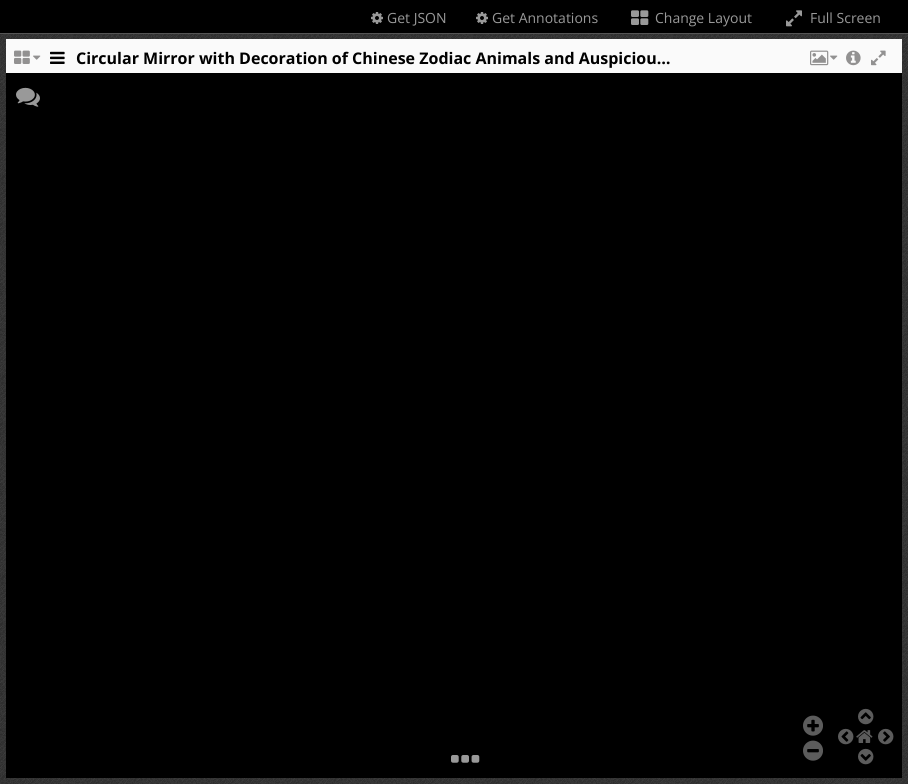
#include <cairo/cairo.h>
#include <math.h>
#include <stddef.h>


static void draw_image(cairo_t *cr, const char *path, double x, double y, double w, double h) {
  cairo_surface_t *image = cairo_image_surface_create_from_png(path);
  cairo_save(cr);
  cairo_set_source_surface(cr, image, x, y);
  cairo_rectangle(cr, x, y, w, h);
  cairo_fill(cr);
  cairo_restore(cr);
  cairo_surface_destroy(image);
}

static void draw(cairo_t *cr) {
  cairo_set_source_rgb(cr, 1, 1, 1);
  cairo_paint(cr);
  draw_image(cr, "images/1.png", 0, 34, 908, 750);
  cairo_set_source_rgb(cr, 0, 0, 0);
  cairo_rectangle(cr, 0, 0, 908, 33);
  cairo_fill(cr);
  cairo_set_source_rgb(cr, 85 / 255.0, 85 / 255.0, 85 / 255.0);
  cairo_rectangle(cr, 0, 33, 908, 1);
  cairo_fill(cr);
  draw_image(cr, "images/2.png", 371, 12, 12, 12);
  draw_image(cr, "images/2.png", 476, 12, 12, 12);
  draw_image(cr, "images/3.png", 631, 10, 18, 15);
  draw_image(cr, "images/4.png", 786, 10, 16, 17);
  cairo_set_source_rgb(cr, 250 / 255.0, 250 / 255.0, 250 / 255.0);
  cairo_rectangle(cr, 6, 39, 896, 34);
  cairo_fill(cr);
  draw_image(cr, "images/5.png", 14, 50, 16, 14);
  draw_image(cr, "images/6.png", 33, 55, 8, 5);
  draw_image(cr, "images/7.png", 50, 51, 15, 13);
  draw_image(cr, "images/8.png", 810, 50, 19, 16);
  draw_image(cr, "images/6.png", 830, 55, 8, 5);
  draw_image(cr, "images/9.png", 846, 50, 15, 16);
  draw_image(cr, "images/10.png", 871, 50, 15, 16);
  cairo_set_source_rgb(cr, 0, 0, 0);
  cairo_rectangle(cr, 6, 73, 896, 705);
  cairo_fill(cr);
  draw_image(cr, "images/11.png", 16, 87, 24, 20);
  draw_image(cr, "images/12.png", 451, 755, 29, 8);
  draw_image(cr, "images/13.png", 803, 715, 20, 21);
  draw_image(cr, "images/14.png", 838, 728, 16, 17);
  draw_image(cr, "images/15.png", 858, 708, 16, 17);
  draw_image(cr, "images/16.png", 878, 728, 16, 17);
  draw_image(cr, "images/17.png", 856, 730, 17, 13);
  draw_image(cr, "images/18.png", 803, 740, 20, 21);
  draw_image(cr, "images/19.png", 858, 748, 16, 17);
  cairo_select_font_face(cr, "Open Sans", CAIRO_FONT_SLANT_NORMAL, CAIRO_FONT_WEIGHT_NORMAL);
  cairo_set_font_size(cr, 14);
  cairo_set_source_rgb(cr, 153 / 255.0, 153 / 255.0, 153 / 255.0);
  cairo_move_to(cr, 387, 23);
  cairo_show_text(cr, "Get JSON");
  cairo_move_to(cr, 492, 23);
  cairo_show_text(cr, "Get Annotations");
  cairo_move_to(cr, 655, 23);
  cairo_show_text(cr, "Change Layout");
  cairo_move_to(cr, 810, 23);
  cairo_show_text(cr, "Full Screen");
  cairo_select_font_face(cr, "Open Sans", CAIRO_FONT_SLANT_NORMAL, CAIRO_FONT_WEIGHT_BOLD);
  cairo_set_font_size(cr, 16);
  cairo_set_source_rgb(cr, 0, 0, 0);
  cairo_move_to(cr, 76, 64);
  cairo_show_text(cr, "Circular Mirror with Decoration of Chinese Zodiac Animals and Auspiciou…");
}

int main(void) {
  cairo_surface_t *surface = cairo_image_surface_create(CAIRO_FORMAT_RGB24, 908, 784);
  cairo_t *cr = cairo_create(surface);
  cairo_font_options_t *options = cairo_font_options_create();
  cairo_font_options_set_hint_metrics(options, CAIRO_HINT_METRICS_OFF);
  cairo_font_options_set_hint_style(options, CAIRO_HINT_STYLE_NONE);
  cairo_set_font_options(cr, options);
  cairo_set_miter_limit(cr, 4);
  draw(cr);
  cairo_surface_write_to_png(surface, "out.png");
  cairo_font_options_destroy(options);
  cairo_destroy(cr);
  cairo_surface_destroy(surface);
  return 0;
}
